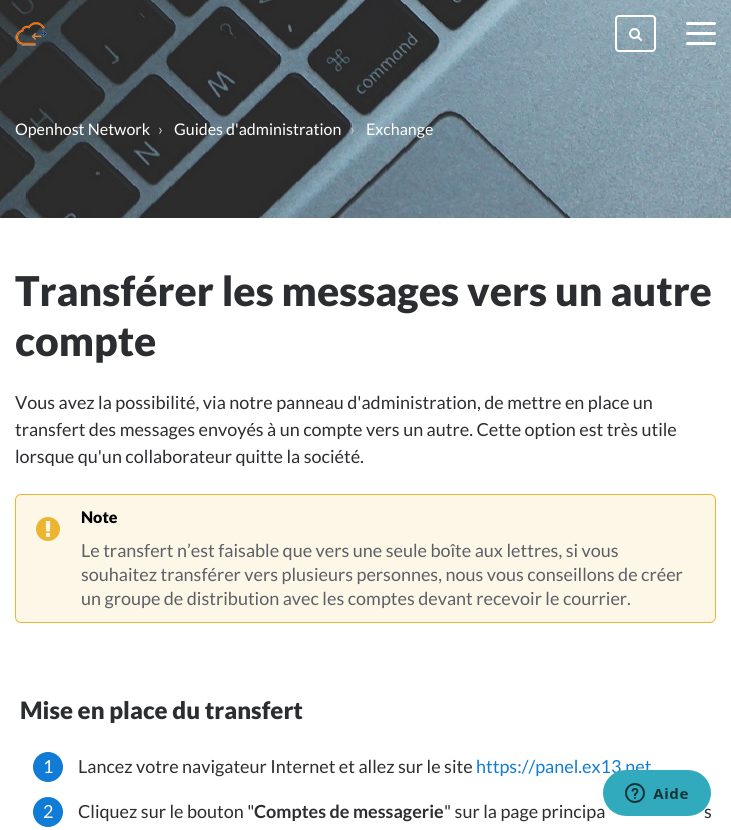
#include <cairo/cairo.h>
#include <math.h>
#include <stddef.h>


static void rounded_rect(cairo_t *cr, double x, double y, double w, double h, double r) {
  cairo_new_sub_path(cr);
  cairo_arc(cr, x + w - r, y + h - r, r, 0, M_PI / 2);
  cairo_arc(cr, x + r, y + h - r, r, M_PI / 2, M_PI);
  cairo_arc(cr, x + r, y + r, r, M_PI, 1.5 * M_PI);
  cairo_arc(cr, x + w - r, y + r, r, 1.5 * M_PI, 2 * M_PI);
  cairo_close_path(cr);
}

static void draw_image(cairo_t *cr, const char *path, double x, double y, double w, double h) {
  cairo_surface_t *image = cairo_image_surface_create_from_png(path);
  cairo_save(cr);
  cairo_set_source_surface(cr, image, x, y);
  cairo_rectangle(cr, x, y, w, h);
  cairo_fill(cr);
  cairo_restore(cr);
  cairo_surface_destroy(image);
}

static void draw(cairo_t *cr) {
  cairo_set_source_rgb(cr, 1, 1, 1);
  cairo_paint(cr);
  draw_image(cr, "images/3.png", 0, 0, 731, 218);
  draw_image(cr, "images/1.png", 15, 22, 32, 24);
  rounded_rect(cr, 616, 16, 39, 35, 3);
  cairo_set_source_rgb(cr, 1, 1, 1);
  cairo_stroke(cr);
  draw_image(cr, "images/2.png", 629, 28, 13, 13);
  rounded_rect(cr, 686, 32, 30, 3, 1.5);
  cairo_fill(cr);
  rounded_rect(cr, 686, 22, 30, 3, 1.5);
  cairo_fill(cr);
  rounded_rect(cr, 686, 42, 30, 3, 1.5);
  cairo_fill(cr);
  cairo_set_source_rgb(cr, 253 / 255.0, 247 / 255.0, 232 / 255.0);
  rounded_rect(cr, 15.5, 494.5, 700, 128, 5.5);
  cairo_fill_preserve(cr);
  cairo_set_source_rgb(cr, 237 / 255.0, 180 / 255.0, 49 / 255.0);
  cairo_set_line_width(cr, 1);
  cairo_stroke(cr);
  draw_image(cr, "images/4.png", 36, 517, 24, 24);
  cairo_set_source_rgb(cr, 16 / 255.0, 124 / 255.0, 213 / 255.0);
  cairo_arc(cr, 48, 767, 15, 0, 2 * M_PI);
  cairo_fill(cr);
  cairo_arc(cr, 48, 812, 15, 0, 2 * M_PI);
  cairo_fill(cr);
  cairo_select_font_face(cr, "Lato", CAIRO_FONT_SLANT_NORMAL, CAIRO_FONT_WEIGHT_NORMAL);
  cairo_set_font_size(cr, 16);
  cairo_set_source_rgb(cr, 1, 1, 1);
  cairo_move_to(cr, 15, 135);
  cairo_show_text(cr, "Openhost Network");
  cairo_set_source_rgb(cr, 204 / 255.0, 204 / 255.0, 204 / 255.0);
  cairo_move_to(cr, 158, 135);
  cairo_show_text(cr, "›");
  cairo_set_source_rgb(cr, 1, 1, 1);
  cairo_move_to(cr, 174, 135);
  cairo_show_text(cr, "Guides d'administration");
  cairo_set_source_rgb(cr, 204 / 255.0, 204 / 255.0, 204 / 255.0);
  cairo_move_to(cr, 350, 135);
  cairo_show_text(cr, "›");
  cairo_set_source_rgb(cr, 1, 1, 1);
  cairo_move_to(cr, 366, 135);
  cairo_show_text(cr, "Exchange");
  cairo_select_font_face(cr, "Lato Black", CAIRO_FONT_SLANT_NORMAL, CAIRO_FONT_WEIGHT_NORMAL);
  cairo_set_font_size(cr, 41);
  cairo_set_source_rgb(cr, 44 / 255.0, 45 / 255.0, 48 / 255.0);
  cairo_move_to(cr, 15, 306);
  cairo_show_text(cr, "Transférer les messages vers un autre");
  cairo_move_to(cr, 15, 356);
  cairo_show_text(cr, "compte");
  cairo_select_font_face(cr, "Lato", CAIRO_FONT_SLANT_NORMAL, CAIRO_FONT_WEIGHT_NORMAL);
  cairo_set_font_size(cr, 18);
  cairo_move_to(cr, 15, 409);
  cairo_show_text(cr, "Vous avez la possibilité, via notre panneau d'administration, de mettre en place un");
  cairo_move_to(cr, 15, 436);
  cairo_show_text(cr, "transfert des messages envoyés à un compte vers un autre. Cette option est très utile");
  cairo_move_to(cr, 15, 463);
  cairo_show_text(cr, "lorsque qu'un collaborateur quitte la société.");
  cairo_select_font_face(cr, "Lato Black", CAIRO_FONT_SLANT_NORMAL, CAIRO_FONT_WEIGHT_NORMAL);
  cairo_set_font_size(cr, 16);
  cairo_set_source_rgb(cr, 0, 0, 0);
  cairo_move_to(cr, 81, 523);
  cairo_show_text(cr, "Note");
  cairo_select_font_face(cr, "Lato", CAIRO_FONT_SLANT_NORMAL, CAIRO_FONT_WEIGHT_NORMAL);
  cairo_set_font_size(cr, 18);
  cairo_set_source_rgb(cr, 93 / 255.0, 95 / 255.0, 101 / 255.0);
  cairo_move_to(cr, 81, 557);
  cairo_show_text(cr, "Le transfert n’est faisable que vers une seule boîte aux lettres, si vous");
  cairo_move_to(cr, 81, 581);
  cairo_show_text(cr, "souhaitez transférer vers plusieurs personnes, nous vous conseillons de créer");
  cairo_move_to(cr, 81, 605);
  cairo_show_text(cr, "un groupe de distribution avec les comptes devant recevoir le courrier.");
  cairo_select_font_face(cr, "Lato Black", CAIRO_FONT_SLANT_NORMAL, CAIRO_FONT_WEIGHT_NORMAL);
  cairo_set_font_size(cr, 24);
  cairo_set_source_rgb(cr, 44 / 255.0, 45 / 255.0, 48 / 255.0);
  cairo_move_to(cr, 20, 719);
  cairo_show_text(cr, "Mise en place du transfert");
  cairo_select_font_face(cr, "Lato", CAIRO_FONT_SLANT_NORMAL, CAIRO_FONT_WEIGHT_NORMAL);
  cairo_set_font_size(cr, 18);
  cairo_set_source_rgb(cr, 1, 1, 1);
  cairo_move_to(cr, 43, 773);
  cairo_show_text(cr, "1");
  cairo_set_source_rgb(cr, 44 / 255.0, 45 / 255.0, 48 / 255.0);
  cairo_move_to(cr, 78, 773);
  cairo_show_text(cr, "Lancez votre navigateur Internet et allez sur le site");
  cairo_set_source_rgb(cr, 16 / 255.0, 124 / 255.0, 213 / 255.0);
  cairo_move_to(cr, 476, 773);
  cairo_show_text(cr, "https://panel.ex13.net");
  cairo_set_source_rgb(cr, 1, 1, 1);
  cairo_move_to(cr, 43, 818);
  cairo_show_text(cr, "2");
  cairo_set_source_rgb(cr, 44 / 255.0, 45 / 255.0, 48 / 255.0);
  cairo_move_to(cr, 78, 818);
  cairo_show_text(cr, "Cliquez sur le bouton \"");
  cairo_select_font_face(cr, "Lato", CAIRO_FONT_SLANT_NORMAL, CAIRO_FONT_WEIGHT_BOLD);
  cairo_move_to(cr, 254, 818);
  cairo_show_text(cr, "Comptes de messagerie");
  cairo_select_font_face(cr, "Lato", CAIRO_FONT_SLANT_NORMAL, CAIRO_FONT_WEIGHT_NORMAL);
  cairo_move_to(cr, 444, 818);
  cairo_show_text(cr, "\" sur la page principa");
  cairo_move_to(cr, 704, 818);
  cairo_show_text(cr, "s");
  draw_image(cr, "images/5.png", 603, 770, 108, 46);
}

int main(void) {
  cairo_surface_t *surface = cairo_image_surface_create(CAIRO_FORMAT_RGB24, 731, 830);
  cairo_t *cr = cairo_create(surface);
  cairo_font_options_t *options = cairo_font_options_create();
  cairo_font_options_set_hint_metrics(options, CAIRO_HINT_METRICS_OFF);
  cairo_font_options_set_hint_style(options, CAIRO_HINT_STYLE_NONE);
  cairo_set_font_options(cr, options);
  cairo_set_miter_limit(cr, 4);
  draw(cr);
  cairo_surface_write_to_png(surface, "out.png");
  cairo_font_options_destroy(options);
  cairo_destroy(cr);
  cairo_surface_destroy(surface);
  return 0;
}
